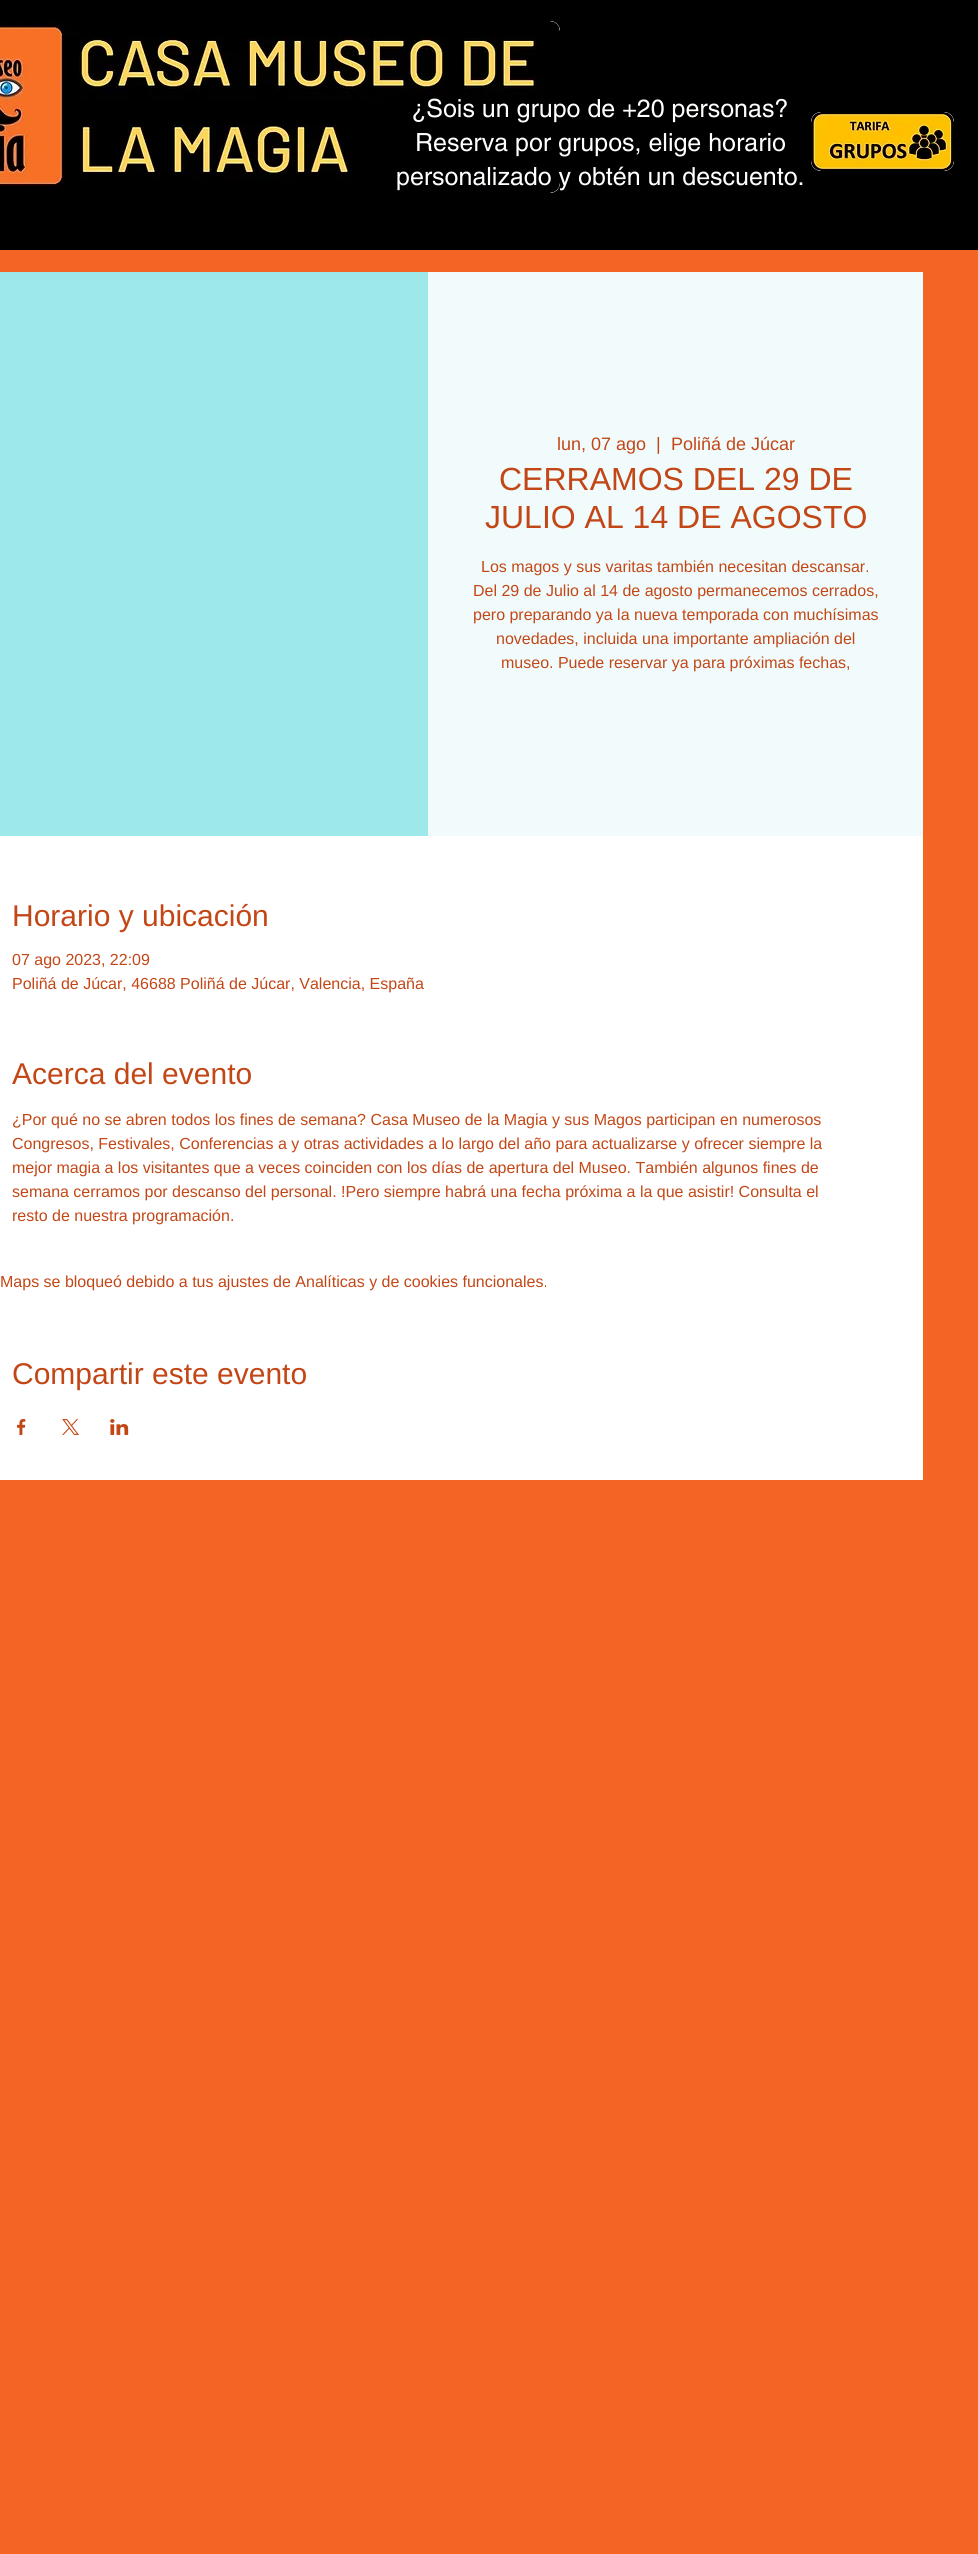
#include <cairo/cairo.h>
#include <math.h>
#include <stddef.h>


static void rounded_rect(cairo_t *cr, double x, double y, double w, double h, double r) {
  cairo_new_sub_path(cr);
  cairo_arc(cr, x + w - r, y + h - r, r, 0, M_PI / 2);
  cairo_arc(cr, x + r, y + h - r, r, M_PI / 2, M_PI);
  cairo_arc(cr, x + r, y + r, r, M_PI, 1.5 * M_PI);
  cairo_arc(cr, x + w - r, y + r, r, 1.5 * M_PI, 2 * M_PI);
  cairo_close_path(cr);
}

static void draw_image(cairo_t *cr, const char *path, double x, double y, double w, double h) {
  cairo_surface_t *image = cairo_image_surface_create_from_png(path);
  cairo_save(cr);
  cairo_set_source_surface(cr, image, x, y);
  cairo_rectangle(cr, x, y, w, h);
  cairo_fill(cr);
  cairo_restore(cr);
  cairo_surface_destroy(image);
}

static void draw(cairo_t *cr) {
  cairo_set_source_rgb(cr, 242 / 255.0, 101 / 255.0, 36 / 255.0);
  cairo_paint(cr);
  cairo_set_source_rgb(cr, 0, 0, 0);
  cairo_rectangle(cr, 0, 0, 978, 250);
  cairo_fill(cr);
  cairo_set_source_rgb(cr, 1, 1, 1);
  cairo_new_path(cr);
  cairo_move_to(cr, 0, 21);
  cairo_line_to(cr, 550, 21);
  cairo_curve_to(cr, 555.5, 21, 560, 25.5, 560, 31);
  cairo_line_to(cr, 560, 183);
  cairo_curve_to(cr, 560, 188.5, 555.5, 193, 550, 193);
  cairo_line_to(cr, 0, 193);
  cairo_close_path(cr);
  cairo_fill(cr);
  draw_image(cr, "images/1.png", 0, 21, 560, 172);
  rounded_rect(cr, 811, 112, 143, 59, 10);
  cairo_fill(cr);
  draw_image(cr, "images/2.png", 811, 112, 143, 59);
  cairo_set_source_rgb(cr, 157 / 255.0, 233 / 255.0, 234 / 255.0);
  cairo_rectangle(cr, 0, 272, 428, 564);
  cairo_fill(cr);
  cairo_set_source_rgb(cr, 241 / 255.0, 251 / 255.0, 252 / 255.0);
  cairo_rectangle(cr, 428, 272, 495, 564);
  cairo_fill(cr);
  cairo_set_source_rgb(cr, 1, 1, 1);
  cairo_rectangle(cr, 0, 836, 923, 644);
  cairo_fill(cr);
  draw_image(cr, "images/3.png", 17, 1419, 9, 16);
  draw_image(cr, "images/4.png", 62, 1419, 17, 16);
  draw_image(cr, "images/5.png", 110, 1419, 19, 16);
  cairo_select_font_face(cr, "helvetica", CAIRO_FONT_SLANT_NORMAL, CAIRO_FONT_WEIGHT_NORMAL);
  cairo_set_font_size(cr, 25);
  cairo_set_source_rgb(cr, 1, 1, 254 / 255.0);
  cairo_move_to(cr, 411, 117);
  cairo_show_text(cr, "¿Sois un grupo de +20 personas?");
  cairo_move_to(cr, 415, 151);
  cairo_show_text(cr, "Reserva por grupos, elige horario");
  cairo_move_to(cr, 396, 185);
  cairo_show_text(cr, "personalizado y obtén un descuento.");
  cairo_select_font_face(cr, "Liberation Sans", CAIRO_FONT_SLANT_NORMAL, CAIRO_FONT_WEIGHT_NORMAL);
  cairo_set_font_size(cr, 18);
  cairo_set_source_rgb(cr, 195 / 255.0, 71 / 255.0, 22 / 255.0);
  cairo_move_to(cr, 557, 450);
  cairo_show_text(cr, "lun, 07 ago");
  cairo_move_to(cr, 656, 450);
  cairo_show_text(cr, "|");
  cairo_move_to(cr, 671, 450);
  cairo_show_text(cr, "Poliñá de Júcar");
  cairo_set_font_size(cr, 32);
  cairo_move_to(cr, 499, 490);
  cairo_show_text(cr, "CERRAMOS DEL 29 DE");
  cairo_move_to(cr, 485, 528);
  cairo_show_text(cr, "JULIO AL 14 DE AGOSTO");
  cairo_set_font_size(cr, 16);
  cairo_move_to(cr, 481, 572);
  cairo_show_text(cr, "Los magos y sus varitas también necesitan descansar.");
  cairo_move_to(cr, 473, 596);
  cairo_show_text(cr, "Del 29 de Julio al 14 de agosto permanecemos cerrados,");
  cairo_move_to(cr, 473, 620);
  cairo_show_text(cr, "pero preparando ya la nueva temporada con muchísimas");
  cairo_move_to(cr, 496, 644);
  cairo_show_text(cr, "novedades, incluida una importante ampliación del");
  cairo_move_to(cr, 501, 668);
  cairo_show_text(cr, "museo. Puede reservar ya para próximas fechas,");
  cairo_set_font_size(cr, 30);
  cairo_move_to(cr, 12, 926);
  cairo_show_text(cr, "Horario y ubicación");
  cairo_set_font_size(cr, 16);
  cairo_move_to(cr, 12, 965);
  cairo_show_text(cr, "07 ago 2023, 22:09");
  cairo_move_to(cr, 12, 989);
  cairo_show_text(cr, "Poliñá de Júcar, 46688 Poliñá de Júcar, Valencia, España");
  cairo_set_font_size(cr, 30);
  cairo_move_to(cr, 12, 1084);
  cairo_show_text(cr, "Acerca del evento");
  cairo_set_font_size(cr, 16);
  cairo_move_to(cr, 12, 1125);
  cairo_show_text(cr, "¿Por qué no se abren todos los fines de semana? Casa Museo de la Magia y sus Magos participan en numerosos");
  cairo_move_to(cr, 12, 1149);
  cairo_show_text(cr, "Congresos, Festivales, Conferencias a y otras actividades a lo largo del año para actualizarse y ofrecer siempre la");
  cairo_move_to(cr, 12, 1173);
  cairo_show_text(cr, "mejor magia a los visitantes que a veces coinciden con los días de apertura del Museo. También algunos fines de");
  cairo_move_to(cr, 12, 1197);
  cairo_show_text(cr, "semana cerramos por descanso del personal. !Pero siempre habrá una fecha próxima a la que asistir! Consulta el");
  cairo_move_to(cr, 12, 1221);
  cairo_show_text(cr, "resto de nuestra programación.");
  cairo_move_to(cr, 0, 1287);
  cairo_show_text(cr, "Maps se bloqueó debido a tus ajustes de Analíticas y de cookies funcionales.");
  cairo_set_font_size(cr, 30);
  cairo_move_to(cr, 12, 1384);
  cairo_show_text(cr, "Compartir este evento");
}

int main(void) {
  cairo_surface_t *surface = cairo_image_surface_create(CAIRO_FORMAT_RGB24, 978, 2554);
  cairo_t *cr = cairo_create(surface);
  cairo_font_options_t *options = cairo_font_options_create();
  cairo_font_options_set_hint_metrics(options, CAIRO_HINT_METRICS_OFF);
  cairo_font_options_set_hint_style(options, CAIRO_HINT_STYLE_NONE);
  cairo_set_font_options(cr, options);
  cairo_set_miter_limit(cr, 4);
  draw(cr);
  cairo_surface_write_to_png(surface, "out.png");
  cairo_font_options_destroy(options);
  cairo_destroy(cr);
  cairo_surface_destroy(surface);
  return 0;
}
